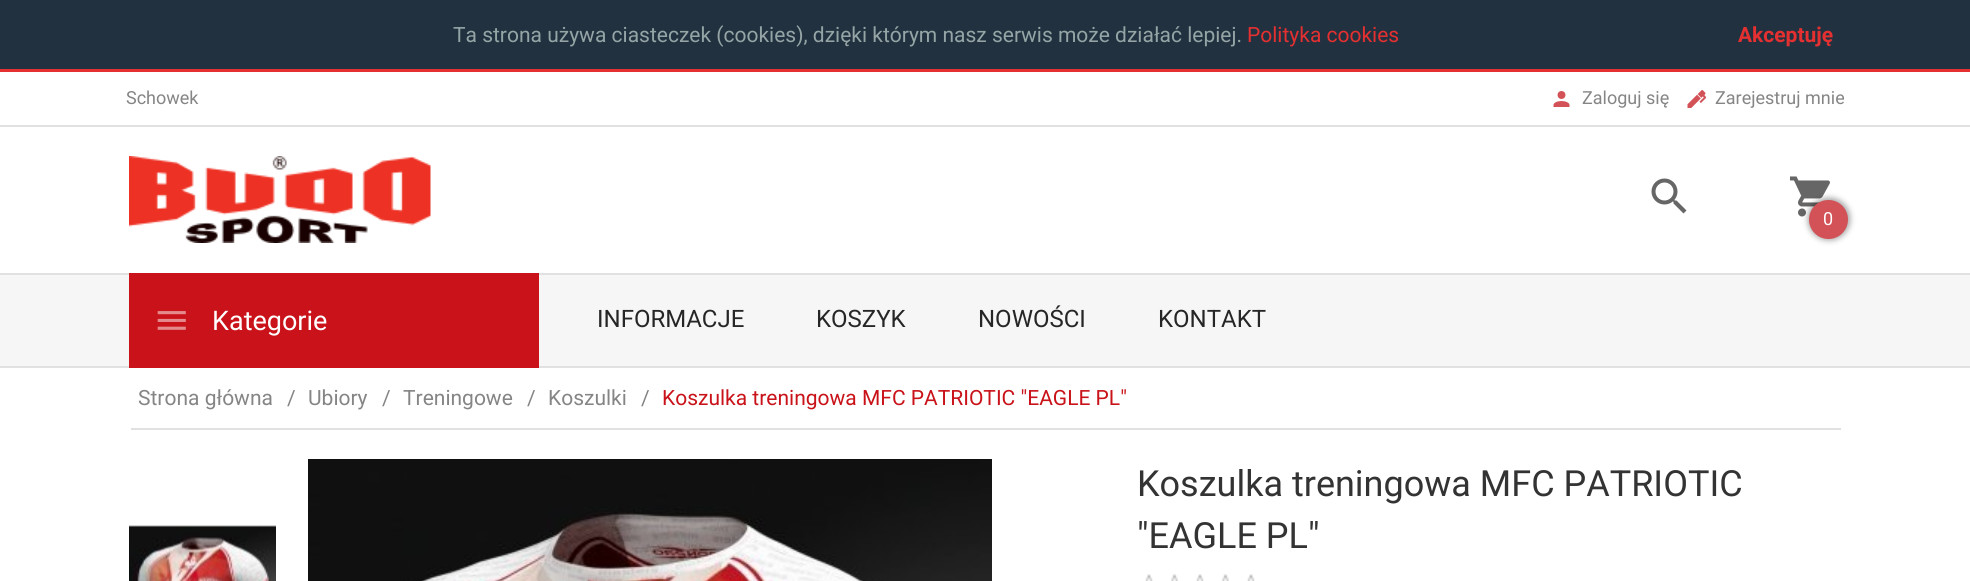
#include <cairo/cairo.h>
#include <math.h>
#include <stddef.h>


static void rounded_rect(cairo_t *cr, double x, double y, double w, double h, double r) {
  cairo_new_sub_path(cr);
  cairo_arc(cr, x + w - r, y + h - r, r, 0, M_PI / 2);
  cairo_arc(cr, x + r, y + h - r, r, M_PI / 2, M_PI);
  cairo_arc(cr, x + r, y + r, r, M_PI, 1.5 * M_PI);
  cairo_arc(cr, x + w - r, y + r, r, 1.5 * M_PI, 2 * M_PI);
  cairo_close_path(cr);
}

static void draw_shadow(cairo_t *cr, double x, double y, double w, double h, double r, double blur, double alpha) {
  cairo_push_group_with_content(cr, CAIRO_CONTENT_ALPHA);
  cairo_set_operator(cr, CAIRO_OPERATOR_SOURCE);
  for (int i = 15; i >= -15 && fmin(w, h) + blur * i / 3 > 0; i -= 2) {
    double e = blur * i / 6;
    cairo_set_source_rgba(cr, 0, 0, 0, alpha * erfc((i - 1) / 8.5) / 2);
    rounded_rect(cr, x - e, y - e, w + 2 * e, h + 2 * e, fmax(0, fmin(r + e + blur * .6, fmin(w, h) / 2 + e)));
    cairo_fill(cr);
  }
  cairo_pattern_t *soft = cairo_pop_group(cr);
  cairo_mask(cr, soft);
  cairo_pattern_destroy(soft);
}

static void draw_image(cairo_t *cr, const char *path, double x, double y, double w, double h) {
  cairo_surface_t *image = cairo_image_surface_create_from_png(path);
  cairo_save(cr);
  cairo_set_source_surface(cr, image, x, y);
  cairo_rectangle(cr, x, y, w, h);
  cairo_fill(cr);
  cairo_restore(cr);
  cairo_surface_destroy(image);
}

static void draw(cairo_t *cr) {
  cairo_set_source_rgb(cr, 1, 1, 1);
  cairo_paint(cr);
  cairo_set_source_rgb(cr, 34 / 255.0, 49 / 255.0, 63 / 255.0);
  cairo_rectangle(cr, 0, 0, 1970, 69);
  cairo_fill(cr);
  cairo_set_source_rgb(cr, 228 / 255.0, 48 / 255.0, 49 / 255.0);
  cairo_rectangle(cr, 0, 69, 1970, 3);
  cairo_fill(cr);
  cairo_set_source_rgb(cr, 225 / 255.0, 225 / 255.0, 225 / 255.0);
  cairo_rectangle(cr, 0, 125, 1970, 2);
  cairo_fill(cr);
  draw_image(cr, "images/1.png", 1553, 91, 17, 16);
  draw_image(cr, "images/2.png", 1687, 90, 19, 18);
  draw_image(cr, "images/3.png", 129, 156, 302, 87);
  draw_image(cr, "images/4.png", 1651, 178, 36, 36);
  draw_image(cr, "images/5.png", 1790, 176, 40, 41);
  cairo_set_source_rgb(cr, 0, 0, 0);
  draw_shadow(cr, 1808, 198, 42, 42, 21, 3, 0.36);
  cairo_set_source_rgb(cr, 210 / 255.0, 82 / 255.0, 87 / 255.0);
  cairo_arc(cr, 1828.5, 219.5, 19.5, 0, 2 * M_PI);
  cairo_fill(cr);
  cairo_set_source_rgb(cr, 246 / 255.0, 246 / 255.0, 246 / 255.0);
  cairo_rectangle(cr, 0, 275, 1970, 91);
  cairo_fill(cr);
  cairo_set_source_rgb(cr, 225 / 255.0, 225 / 255.0, 225 / 255.0);
  cairo_rectangle(cr, 0, 273, 1970, 2);
  cairo_fill(cr);
  cairo_rectangle(cr, 0, 366, 1970, 2);
  cairo_fill(cr);
  cairo_set_source_rgb(cr, 201 / 255.0, 18 / 255.0, 25 / 255.0);
  cairo_rectangle(cr, 129, 273, 410, 95);
  cairo_fill(cr);
  draw_image(cr, "images/6.png", 157, 311, 29, 19);
  cairo_set_source_rgb(cr, 225 / 255.0, 225 / 255.0, 225 / 255.0);
  cairo_rectangle(cr, 131, 428, 1710, 2);
  cairo_fill(cr);
  draw_image(cr, "images/7.png", 129, 525, 147, 56);
  draw_image(cr, "images/8.png", 308, 459, 684, 122);
  draw_image(cr, "images/9.png", 1145, 574, 110, 7);
  cairo_select_font_face(cr, "Roboto", CAIRO_FONT_SLANT_NORMAL, CAIRO_FONT_WEIGHT_NORMAL);
  cairo_set_font_size(cr, 21);
  cairo_set_source_rgb(cr, 149 / 255.0, 165 / 255.0, 166 / 255.0);
  cairo_move_to(cr, 453, 42);
  cairo_show_text(cr, "Ta strona używa ciasteczek (cookies), dzięki którym nasz serwis może działać lepiej.");
  cairo_set_source_rgb(cr, 228 / 255.0, 48 / 255.0, 49 / 255.0);
  cairo_move_to(cr, 1247, 42);
  cairo_show_text(cr, "Polityka cookies");
  cairo_select_font_face(cr, "Roboto", CAIRO_FONT_SLANT_NORMAL, CAIRO_FONT_WEIGHT_BOLD);
  cairo_move_to(cr, 1738, 42);
  cairo_show_text(cr, "Akceptuję");
  cairo_select_font_face(cr, "Roboto", CAIRO_FONT_SLANT_NORMAL, CAIRO_FONT_WEIGHT_NORMAL);
  cairo_set_font_size(cr, 18);
  cairo_set_source_rgb(cr, 133 / 255.0, 133 / 255.0, 133 / 255.0);
  cairo_move_to(cr, 126, 104);
  cairo_show_text(cr, "Schowek");
  cairo_move_to(cr, 1582, 104);
  cairo_show_text(cr, "Zaloguj się");
  cairo_move_to(cr, 1715, 104);
  cairo_show_text(cr, "Zarejestruj mnie");
  cairo_set_source_rgb(cr, 1, 1, 1);
  cairo_move_to(cr, 1823, 225);
  cairo_show_text(cr, "0");
  cairo_set_font_size(cr, 27);
  cairo_move_to(cr, 212, 330);
  cairo_show_text(cr, "Kategorie");
  cairo_set_font_size(cr, 24);
  cairo_set_source_rgb(cr, 38 / 255.0, 38 / 255.0, 38 / 255.0);
  cairo_move_to(cr, 597, 327);
  cairo_show_text(cr, "INFORMACJE");
  cairo_move_to(cr, 816, 327);
  cairo_show_text(cr, "KOSZYK");
  cairo_move_to(cr, 978, 327);
  cairo_show_text(cr, "NOWOŚCI");
  cairo_move_to(cr, 1158, 327);
  cairo_show_text(cr, "KONTAKT");
  cairo_set_font_size(cr, 21);
  cairo_set_source_rgb(cr, 133 / 255.0, 133 / 255.0, 133 / 255.0);
  cairo_move_to(cr, 138, 405);
  cairo_show_text(cr, "Strona główna");
  cairo_move_to(cr, 287, 405);
  cairo_show_text(cr, "/");
  cairo_move_to(cr, 308, 405);
  cairo_show_text(cr, "Ubiory");
  cairo_move_to(cr, 382, 405);
  cairo_show_text(cr, "/");
  cairo_move_to(cr, 403, 405);
  cairo_show_text(cr, "Treningowe");
  cairo_move_to(cr, 527, 405);
  cairo_show_text(cr, "/");
  cairo_move_to(cr, 548, 405);
  cairo_show_text(cr, "Koszulki");
  cairo_move_to(cr, 641, 405);
  cairo_show_text(cr, "/");
  cairo_set_source_rgb(cr, 201 / 255.0, 18 / 255.0, 25 / 255.0);
  cairo_move_to(cr, 662, 405);
  cairo_show_text(cr, "Koszulka treningowa MFC PATRIOTIC \"EAGLE PL\"");
  cairo_set_font_size(cr, 36);
  cairo_set_source_rgb(cr, 51 / 255.0, 51 / 255.0, 51 / 255.0);
  cairo_move_to(cr, 1137, 496);
  cairo_show_text(cr, "Koszulka treningowa MFC PATRIOTIC");
  cairo_move_to(cr, 1137, 548);
  cairo_show_text(cr, "\"EAGLE PL\"");
}

int main(void) {
  cairo_surface_t *surface = cairo_image_surface_create(CAIRO_FORMAT_RGB24, 1970, 581);
  cairo_t *cr = cairo_create(surface);
  cairo_font_options_t *options = cairo_font_options_create();
  cairo_font_options_set_hint_metrics(options, CAIRO_HINT_METRICS_OFF);
  cairo_font_options_set_hint_style(options, CAIRO_HINT_STYLE_NONE);
  cairo_set_font_options(cr, options);
  cairo_set_miter_limit(cr, 4);
  draw(cr);
  cairo_surface_write_to_png(surface, "out.png");
  cairo_font_options_destroy(options);
  cairo_destroy(cr);
  cairo_surface_destroy(surface);
  return 0;
}
